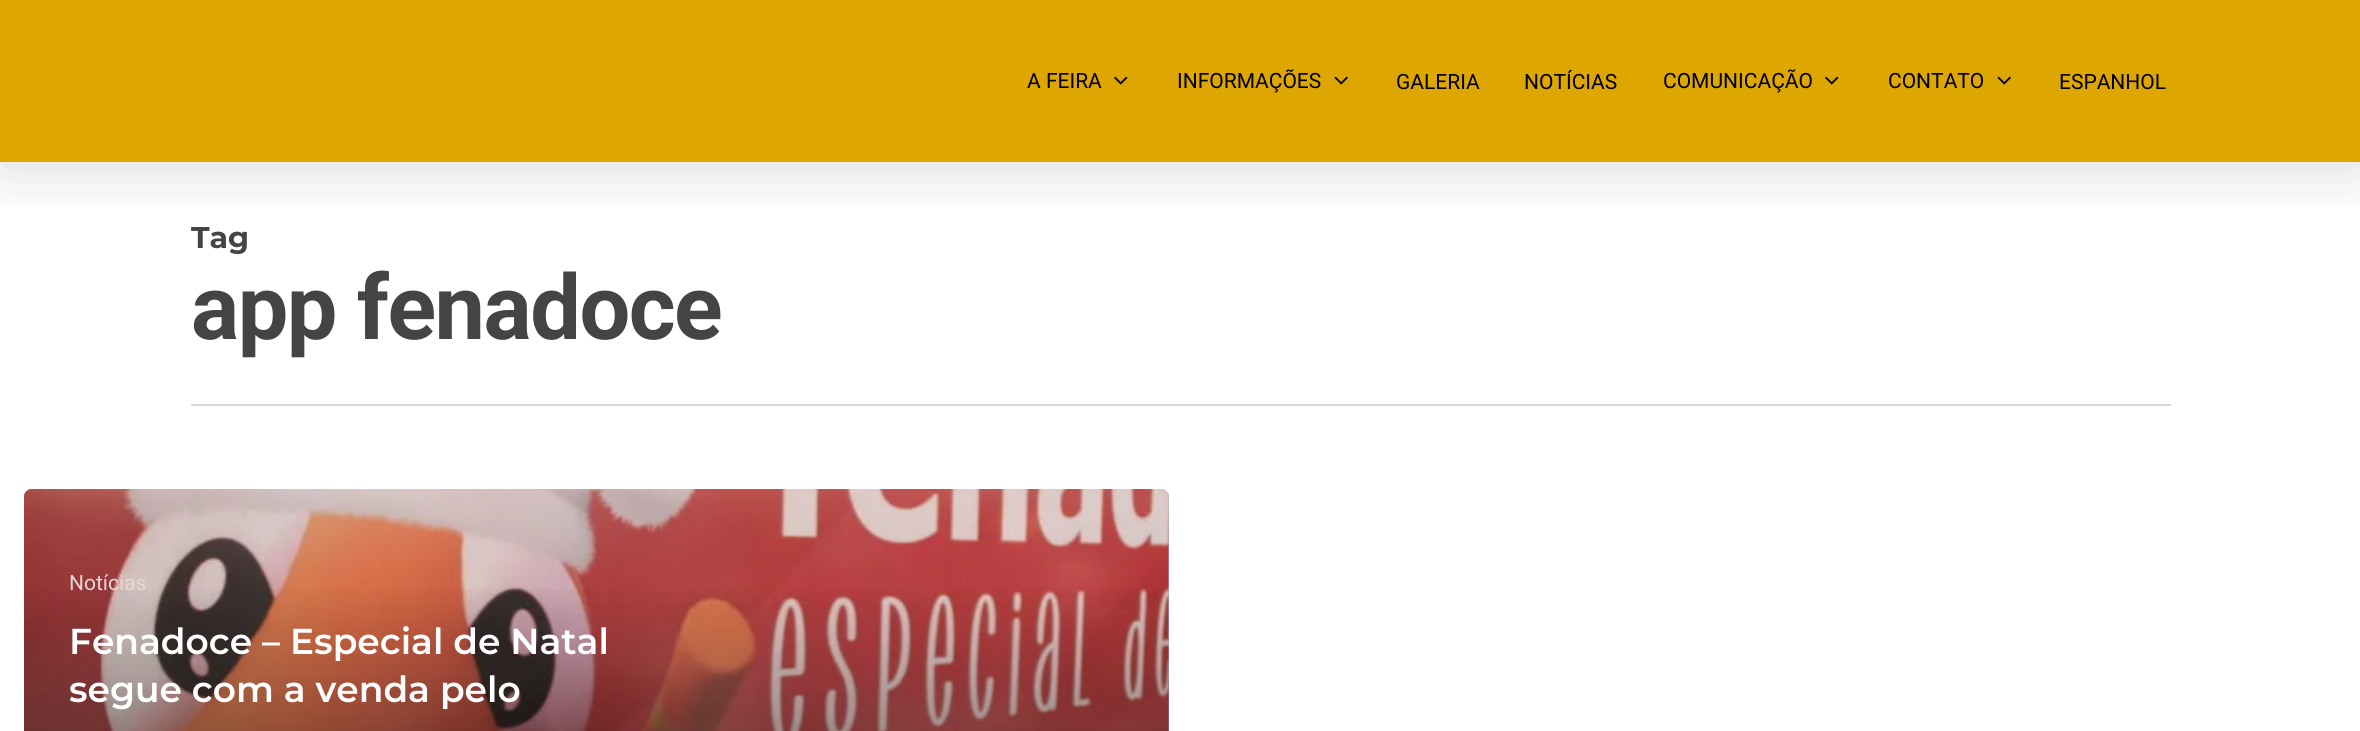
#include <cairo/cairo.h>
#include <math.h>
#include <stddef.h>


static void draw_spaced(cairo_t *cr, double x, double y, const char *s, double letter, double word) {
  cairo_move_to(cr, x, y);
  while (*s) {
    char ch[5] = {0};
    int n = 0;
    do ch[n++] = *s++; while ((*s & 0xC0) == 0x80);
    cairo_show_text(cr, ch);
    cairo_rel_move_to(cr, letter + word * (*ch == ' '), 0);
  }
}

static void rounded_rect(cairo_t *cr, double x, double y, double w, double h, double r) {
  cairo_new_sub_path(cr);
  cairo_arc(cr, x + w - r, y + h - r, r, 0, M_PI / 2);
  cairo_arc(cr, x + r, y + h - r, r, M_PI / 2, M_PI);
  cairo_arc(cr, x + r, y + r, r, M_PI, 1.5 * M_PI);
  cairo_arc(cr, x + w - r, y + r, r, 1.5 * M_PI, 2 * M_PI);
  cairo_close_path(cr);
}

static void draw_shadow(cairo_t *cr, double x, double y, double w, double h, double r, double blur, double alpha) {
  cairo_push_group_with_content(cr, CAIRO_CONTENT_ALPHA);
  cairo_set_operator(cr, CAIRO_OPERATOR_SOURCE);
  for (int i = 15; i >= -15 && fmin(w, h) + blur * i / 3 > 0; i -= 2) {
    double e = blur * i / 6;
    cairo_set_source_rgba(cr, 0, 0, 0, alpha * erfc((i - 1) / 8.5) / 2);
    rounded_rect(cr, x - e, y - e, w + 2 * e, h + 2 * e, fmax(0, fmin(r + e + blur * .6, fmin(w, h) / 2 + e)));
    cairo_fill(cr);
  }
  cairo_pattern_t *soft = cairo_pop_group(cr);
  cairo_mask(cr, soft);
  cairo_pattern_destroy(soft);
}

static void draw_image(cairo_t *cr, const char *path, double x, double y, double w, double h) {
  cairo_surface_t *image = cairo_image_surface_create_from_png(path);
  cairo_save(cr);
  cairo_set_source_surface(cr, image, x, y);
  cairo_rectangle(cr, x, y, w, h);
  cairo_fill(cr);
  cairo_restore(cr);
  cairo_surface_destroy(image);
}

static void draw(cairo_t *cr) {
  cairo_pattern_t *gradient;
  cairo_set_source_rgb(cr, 1, 1, 1);
  cairo_paint(cr);
  cairo_set_source_rgb(cr, 222 / 255.0, 166 / 255.0, 0);
  cairo_rectangle(cr, 0, 0, 2360, 162);
  cairo_fill(cr);
  cairo_save(cr);
  cairo_rectangle(cr, 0, 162, 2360, 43);
  cairo_clip(cr);
  cairo_set_source_rgb(cr, 0, 0, 0);
  draw_shadow(cr, 0, 5, 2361, 162, 0, 34, 0.15);
  cairo_restore(cr);
  draw_image(cr, "images/1.png", 1114, 76, 14, 9);
  draw_image(cr, "images/2.png", 1334, 76, 14, 9);
  draw_image(cr, "images/1.png", 1825, 76, 14, 9);
  draw_image(cr, "images/2.png", 1997, 76, 14, 9);
  cairo_set_source_rgb(cr, 217 / 255.0, 217 / 255.0, 217 / 255.0);
  cairo_rectangle(cr, 191, 404, 1980, 2);
  cairo_fill(cr);
  cairo_set_source_rgb(cr, 179 / 255.0, 179 / 255.0, 179 / 255.0);
  rounded_rect(cr, 24, 489, 1145, 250, 8);
  cairo_fill(cr);
  draw_image(cr, "images/3.png", 24, 489, 1145, 242);
  gradient = cairo_pattern_create_linear(599, 580, 599, 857);
  cairo_pattern_add_color_stop_rgba(gradient, 0, 35 / 255.0, 35 / 255.0, 35 / 255.0, 0);
  cairo_pattern_add_color_stop_rgba(gradient, 1, 35 / 255.0, 35 / 255.0, 35 / 255.0, 0.65);
  cairo_set_source(cr, gradient);
  cairo_pattern_destroy(gradient);
  cairo_rectangle(cr, 24, 589, 1145, 142);
  cairo_fill(cr);
  cairo_select_font_face(cr, "Roboto", CAIRO_FONT_SLANT_NORMAL, CAIRO_FONT_WEIGHT_NORMAL);
  cairo_set_font_size(cr, 21);
  cairo_set_source_rgb(cr, 0, 0, 0);
  cairo_move_to(cr, 1027, 88);
  cairo_show_text(cr, "A FEIRA");
  cairo_move_to(cr, 1177, 88);
  cairo_show_text(cr, "INFORMAÇÕES");
  cairo_move_to(cr, 1396, 89);
  cairo_show_text(cr, "GALERIA");
  cairo_move_to(cr, 1524, 89);
  cairo_show_text(cr, "NOTÍCIAS");
  cairo_move_to(cr, 1663, 88);
  cairo_show_text(cr, "COMUNICAÇÃO");
  cairo_move_to(cr, 1888, 88);
  cairo_show_text(cr, "CONTATO");
  cairo_move_to(cr, 2059, 89);
  cairo_show_text(cr, "ESPANHOL");
  cairo_select_font_face(cr, "Montserrat", CAIRO_FONT_SLANT_NORMAL, CAIRO_FONT_WEIGHT_BOLD);
  cairo_set_font_size(cr, 30);
  cairo_set_source_rgb(cr, 68 / 255.0, 68 / 255.0, 68 / 255.0);
  cairo_move_to(cr, 191, 248);
  cairo_show_text(cr, "Tag");
  cairo_select_font_face(cr, "Roboto", CAIRO_FONT_SLANT_NORMAL, CAIRO_FONT_WEIGHT_BOLD);
  cairo_set_font_size(cr, 90);
  draw_spaced(cr, 191, 339, "app fenadoce", -1.5, 0);
  cairo_select_font_face(cr, "Roboto", CAIRO_FONT_SLANT_NORMAL, CAIRO_FONT_WEIGHT_NORMAL);
  cairo_set_font_size(cr, 21);
  cairo_set_source_rgb(cr, 232 / 255.0, 214 / 255.0, 214 / 255.0);
  cairo_move_to(cr, 69, 590);
  cairo_show_text(cr, "Notícias");
  cairo_select_font_face(cr, "Montserrat SemiBold", CAIRO_FONT_SLANT_NORMAL, CAIRO_FONT_WEIGHT_NORMAL);
  cairo_set_font_size(cr, 36);
  cairo_set_source_rgb(cr, 1, 1, 1);
  cairo_move_to(cr, 69, 654);
  cairo_show_text(cr, "Fenadoce – Especial de Natal");
  cairo_move_to(cr, 69, 702);
  cairo_show_text(cr, "segue com a venda pelo");
}

int main(void) {
  cairo_surface_t *surface = cairo_image_surface_create(CAIRO_FORMAT_RGB24, 2360, 731);
  cairo_t *cr = cairo_create(surface);
  cairo_font_options_t *options = cairo_font_options_create();
  cairo_font_options_set_hint_metrics(options, CAIRO_HINT_METRICS_OFF);
  cairo_font_options_set_hint_style(options, CAIRO_HINT_STYLE_NONE);
  cairo_set_font_options(cr, options);
  cairo_set_miter_limit(cr, 4);
  draw(cr);
  cairo_surface_write_to_png(surface, "out.png");
  cairo_font_options_destroy(options);
  cairo_destroy(cr);
  cairo_surface_destroy(surface);
  return 0;
}
